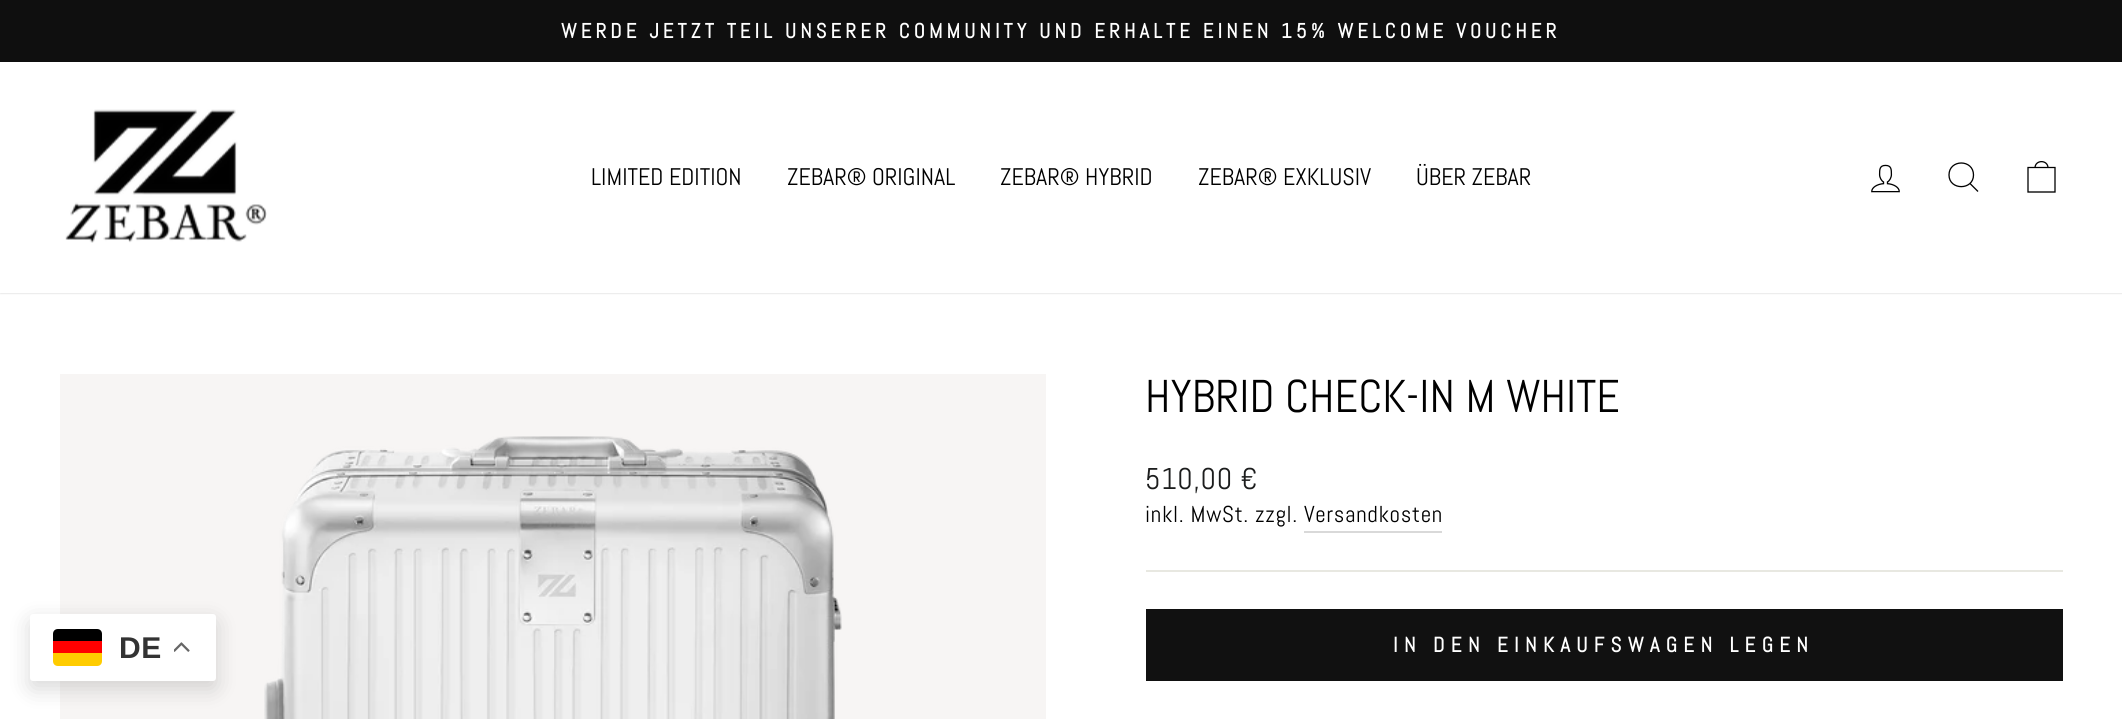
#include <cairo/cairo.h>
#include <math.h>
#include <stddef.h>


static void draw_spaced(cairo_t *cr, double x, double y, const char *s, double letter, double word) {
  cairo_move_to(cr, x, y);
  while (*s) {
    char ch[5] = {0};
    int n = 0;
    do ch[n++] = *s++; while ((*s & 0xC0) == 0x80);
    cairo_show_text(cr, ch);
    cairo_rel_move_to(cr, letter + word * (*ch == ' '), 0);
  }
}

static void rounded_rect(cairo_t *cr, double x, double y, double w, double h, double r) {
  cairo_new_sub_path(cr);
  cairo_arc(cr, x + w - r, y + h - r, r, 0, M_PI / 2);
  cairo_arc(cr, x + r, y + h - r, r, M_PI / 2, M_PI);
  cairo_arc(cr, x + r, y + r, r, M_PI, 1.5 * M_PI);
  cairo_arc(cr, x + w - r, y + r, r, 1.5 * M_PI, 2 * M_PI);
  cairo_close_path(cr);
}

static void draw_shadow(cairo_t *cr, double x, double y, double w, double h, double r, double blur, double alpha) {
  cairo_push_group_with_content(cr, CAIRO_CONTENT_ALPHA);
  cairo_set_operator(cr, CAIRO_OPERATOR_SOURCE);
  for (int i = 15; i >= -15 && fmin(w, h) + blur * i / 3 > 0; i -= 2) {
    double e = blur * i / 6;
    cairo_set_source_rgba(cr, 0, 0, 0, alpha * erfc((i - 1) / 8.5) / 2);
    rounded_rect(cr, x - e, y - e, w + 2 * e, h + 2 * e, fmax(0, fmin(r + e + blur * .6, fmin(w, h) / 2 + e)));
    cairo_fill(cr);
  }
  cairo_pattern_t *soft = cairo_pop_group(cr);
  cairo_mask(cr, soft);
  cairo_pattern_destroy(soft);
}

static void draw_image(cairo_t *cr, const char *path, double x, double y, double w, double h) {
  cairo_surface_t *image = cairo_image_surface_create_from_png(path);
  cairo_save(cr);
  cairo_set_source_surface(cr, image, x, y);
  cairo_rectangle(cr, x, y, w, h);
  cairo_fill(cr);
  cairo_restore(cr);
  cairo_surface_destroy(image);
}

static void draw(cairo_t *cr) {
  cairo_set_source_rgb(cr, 1, 1, 1);
  cairo_paint(cr);
  cairo_set_source_rgb(cr, 247 / 255.0, 245 / 255.0, 244 / 255.0);
  cairo_rectangle(cr, 60, 374, 986, 345);
  cairo_fill(cr);
  cairo_set_source_rgb(cr, 0, 0, 0);
  draw_shadow(cr, 30, 621, 186, 68, 3, 11, 0.15);
  cairo_set_source_rgb(cr, 1, 1, 1);
  rounded_rect(cr, 30, 614, 186, 67, 3);
  cairo_fill(cr);
  cairo_set_source_rgb(cr, 1, 204 / 255.0, 0);
  cairo_new_path(cr);
  cairo_move_to(cr, 53, 653);
  cairo_line_to(cr, 102, 653);
  cairo_line_to(cr, 102, 661);
  cairo_curve_to(cr, 102, 664, 100, 666, 97, 666);
  cairo_line_to(cr, 58, 666);
  cairo_curve_to(cr, 55, 666, 53, 664, 53, 661);
  cairo_close_path(cr);
  cairo_fill(cr);
  cairo_set_source_rgb(cr, 0, 0, 0);
  cairo_new_path(cr);
  cairo_move_to(cr, 58, 629);
  cairo_line_to(cr, 97, 629);
  cairo_curve_to(cr, 100, 629, 102, 631, 102, 634);
  cairo_line_to(cr, 102, 641);
  cairo_line_to(cr, 53, 641);
  cairo_line_to(cr, 53, 634);
  cairo_curve_to(cr, 53, 631, 55, 629, 58, 629);
  cairo_close_path(cr);
  cairo_fill(cr);
  cairo_set_source_rgb(cr, 1, 0, 0);
  cairo_rectangle(cr, 53, 641, 49, 12);
  cairo_fill(cr);
  draw_image(cr, "images/1.png", 174, 642, 16, 10);
  cairo_set_source_rgb(cr, 15 / 255.0, 15 / 255.0, 15 / 255.0);
  cairo_rectangle(cr, 0, 0, 2122, 62);
  cairo_fill(cr);
  cairo_set_source_rgb(cr, 0, 0, 0);
  draw_shadow(cr, 0, 62, 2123, 231, 0, 1, 0.2);
  cairo_set_source_rgb(cr, 1, 1, 1);
  cairo_rectangle(cr, 0, 62, 2122, 231);
  cairo_fill(cr);
  draw_image(cr, "images/2.png", 65, 109, 202, 134);
  draw_image(cr, "images/3.png", 1871, 164, 29, 29);
  cairo_new_path(cr);
  cairo_move_to(cr, 1973.5, 175);
  cairo_curve_to(cr, 1973.5, 190.5, 1949, 190.5, 1949, 175);
  cairo_curve_to(cr, 1949, 159, 1973.5, 159, 1973.5, 175);
  cairo_close_path(cr);
  cairo_move_to(cr, 1978, 191.5);
  cairo_line_to(cr, 1970, 183.5);
  cairo_set_source_rgb(cr, 0, 0, 0);
  cairo_set_line_width(cr, 1.3);
  cairo_stroke(cr);
  cairo_new_path(cr);
  cairo_move_to(cr, 2028, 167.5);
  cairo_line_to(cr, 2055, 167.5);
  cairo_line_to(cr, 2055, 192);
  cairo_line_to(cr, 2028, 192);
  cairo_close_path(cr);
  cairo_move_to(cr, 2035, 168);
  cairo_curve_to(cr, 2035, 159.5, 2048, 159.5, 2048, 168);
  cairo_stroke(cr);
  draw_image(cr, "images/4.png", 264, 436, 578, 283);
  cairo_set_source_rgb(cr, 217 / 255.0, 217 / 255.0, 217 / 255.0);
  cairo_rectangle(cr, 1304, 531, 138, 2);
  cairo_fill(cr);
  cairo_set_source_rgb(cr, 232 / 255.0, 232 / 255.0, 225 / 255.0);
  cairo_rectangle(cr, 1146, 570, 917, 2);
  cairo_fill(cr);
  cairo_set_source_rgb(cr, 17 / 255.0, 17 / 255.0, 17 / 255.0);
  cairo_rectangle(cr, 1146, 609, 917, 72);
  cairo_fill(cr);
  cairo_select_font_face(cr, "Liberation Sans", CAIRO_FONT_SLANT_NORMAL, CAIRO_FONT_WEIGHT_BOLD);
  cairo_set_font_size(cr, 30);
  cairo_set_source_rgb(cr, 51 / 255.0, 51 / 255.0, 51 / 255.0);
  draw_spaced(cr, 119, 658, "DE", 0.7, 0);
  cairo_select_font_face(cr, "Abel", CAIRO_FONT_SLANT_NORMAL, CAIRO_FONT_WEIGHT_BOLD);
  cairo_set_font_size(cr, 20.65);
  cairo_set_source_rgb(cr, 1, 1, 1);
  draw_spaced(cr, 561, 38, "WERDE JETZT TEIL UNSERER COMMUNITY UND ERHALTE EINEN 15% WELCOME VOUCHER", 4.13, 0);
  cairo_select_font_face(cr, "Abel", CAIRO_FONT_SLANT_NORMAL, CAIRO_FONT_WEIGHT_NORMAL);
  cairo_set_font_size(cr, 24);
  cairo_set_source_rgb(cr, 0, 0, 0);
  cairo_move_to(cr, 591, 185);
  cairo_show_text(cr, "LIMITED EDITION");
  cairo_move_to(cr, 787, 185);
  cairo_show_text(cr, "ZEBAR® ORIGINAL");
  cairo_move_to(cr, 1000, 185);
  cairo_show_text(cr, "ZEBAR® HYBRID");
  cairo_move_to(cr, 1198, 185);
  cairo_show_text(cr, "ZEBAR® EXKLUSIV");
  cairo_move_to(cr, 1416, 185);
  cairo_show_text(cr, "ÜBER ZEBAR");
  cairo_set_font_size(cr, 45.9);
  cairo_move_to(cr, 1145, 412);
  cairo_show_text(cr, "HYBRID CHECK-IN M WHITE");
  cairo_set_font_size(cr, 30);
  cairo_set_source_rgb(cr, 28 / 255.0, 29 / 255.0, 29 / 255.0);
  draw_spaced(cr, 1145, 489, "510,00 €", 0.7, 0);
  cairo_set_font_size(cr, 23);
  cairo_set_source_rgb(cr, 0, 0, 0);
  draw_spaced(cr, 1145, 522, "inkl. MwSt. zzgl. Versandkosten", 0.7, 0);
  cairo_select_font_face(cr, "Abel", CAIRO_FONT_SLANT_NORMAL, CAIRO_FONT_WEIGHT_BOLD);
  cairo_set_font_size(cr, 21);
  cairo_set_source_rgb(cr, 1, 1, 1);
  draw_spaced(cr, 1393, 652, "IN DEN EINKAUFSWAGEN LEGEN", 6.3, 0);
}

int main(void) {
  cairo_surface_t *surface = cairo_image_surface_create(CAIRO_FORMAT_RGB24, 2122, 719);
  cairo_t *cr = cairo_create(surface);
  cairo_font_options_t *options = cairo_font_options_create();
  cairo_font_options_set_hint_metrics(options, CAIRO_HINT_METRICS_OFF);
  cairo_font_options_set_hint_style(options, CAIRO_HINT_STYLE_NONE);
  cairo_set_font_options(cr, options);
  cairo_set_miter_limit(cr, 4);
  draw(cr);
  cairo_surface_write_to_png(surface, "out.png");
  cairo_font_options_destroy(options);
  cairo_destroy(cr);
  cairo_surface_destroy(surface);
  return 0;
}
